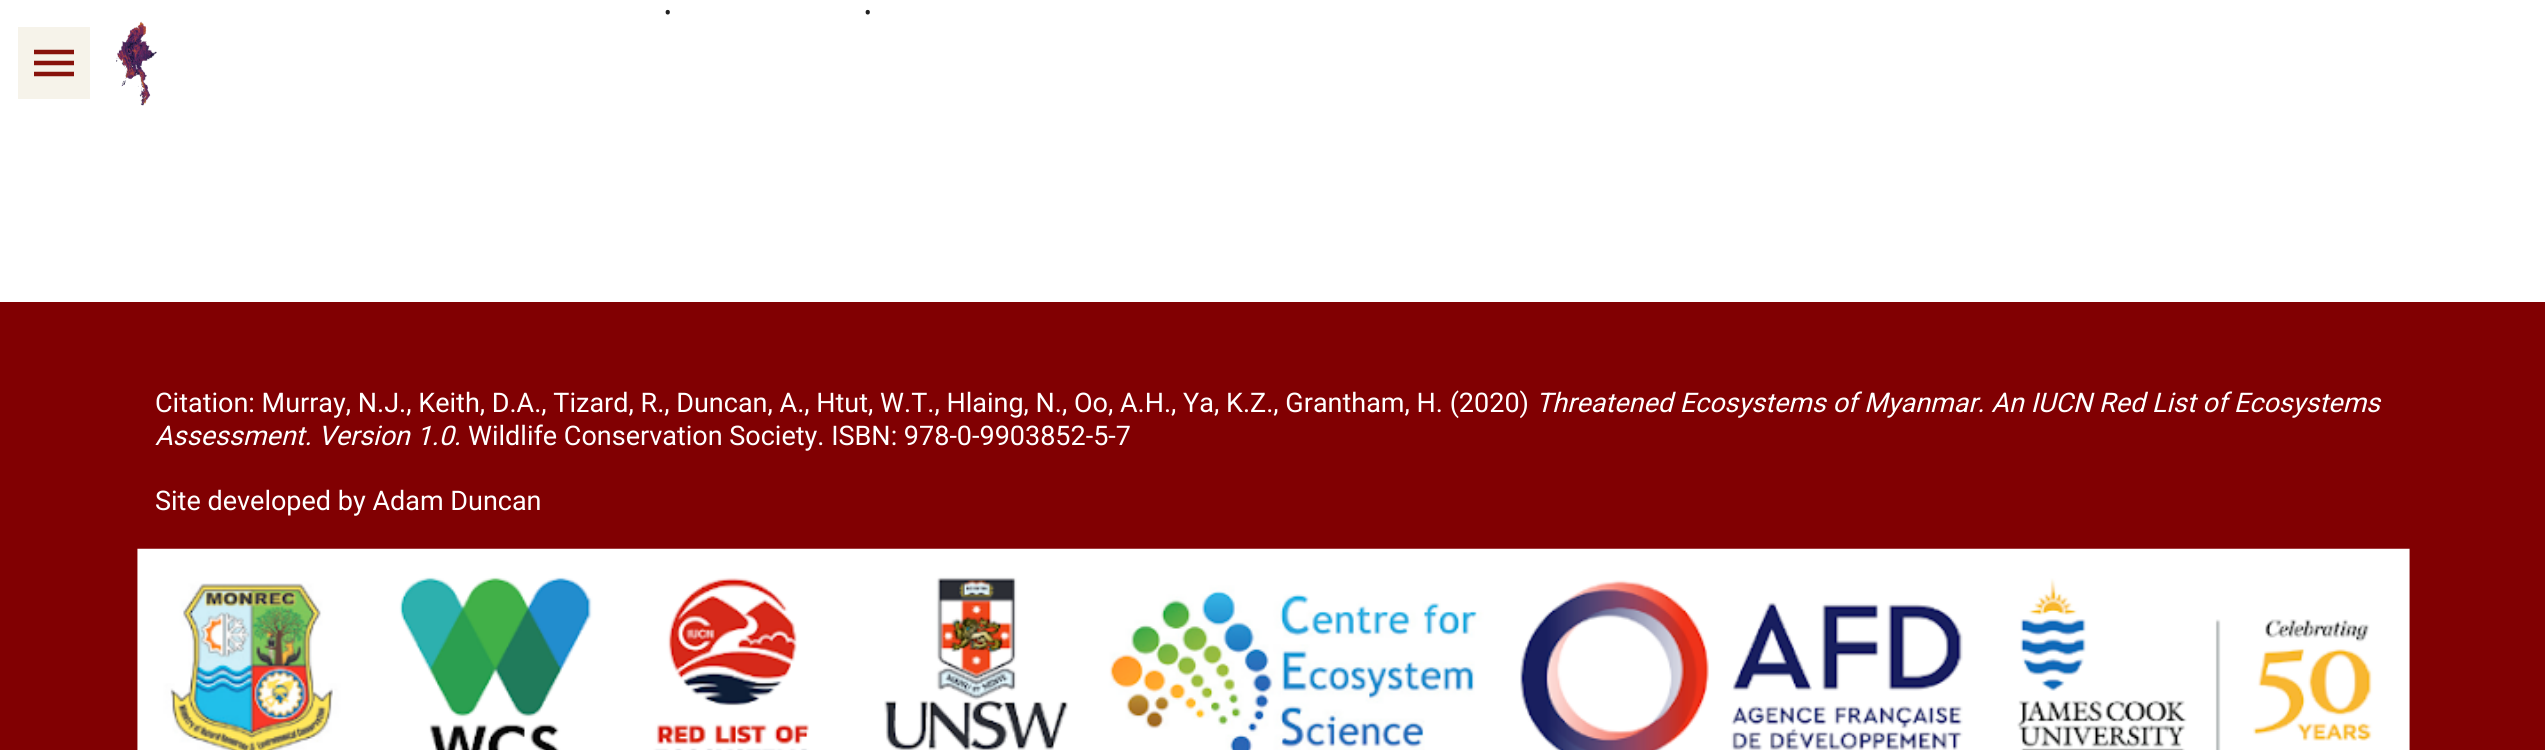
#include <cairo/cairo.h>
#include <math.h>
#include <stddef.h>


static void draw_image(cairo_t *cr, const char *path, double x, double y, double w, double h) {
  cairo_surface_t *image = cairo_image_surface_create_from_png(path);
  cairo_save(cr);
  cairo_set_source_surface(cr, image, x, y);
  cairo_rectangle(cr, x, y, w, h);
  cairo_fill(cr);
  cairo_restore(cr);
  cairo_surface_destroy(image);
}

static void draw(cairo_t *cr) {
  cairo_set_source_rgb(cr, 1, 1, 1);
  cairo_paint(cr);
  cairo_set_source_rgb(cr, 246 / 255.0, 243 / 255.0, 234 / 255.0);
  cairo_rectangle(cr, 18, 27, 72, 72);
  cairo_fill(cr);
  cairo_new_path(cr);
  cairo_move_to(cr, 34, 52);
  cairo_line_to(cr, 74, 52);
  cairo_move_to(cr, 34, 63);
  cairo_line_to(cr, 74, 63);
  cairo_move_to(cr, 34, 74);
  cairo_line_to(cr, 74, 74);
  cairo_set_source_rgb(cr, 135 / 255.0, 18 / 255.0, 11 / 255.0);
  cairo_set_line_width(cr, 4.5);
  cairo_stroke(cr);
  draw_image(cr, "images/1.png", 116, 21, 41, 85);
  cairo_set_source_rgb(cr, 129 / 255.0, 0, 2 / 255.0);
  cairo_rectangle(cr, 0, 302, 2545, 448);
  cairo_fill(cr);
  draw_image(cr, "images/2.png", 137, 548, 2273, 202);
  cairo_select_font_face(cr, "Open Sans", CAIRO_FONT_SLANT_NORMAL, CAIRO_FONT_WEIGHT_NORMAL);
  cairo_set_font_size(cr, 36);
  cairo_set_source_rgb(cr, 33 / 255.0, 33 / 255.0, 33 / 255.0);
  cairo_move_to(cr, 663, 14);
  cairo_show_text(cr, ".");
  cairo_move_to(cr, 863, 14);
  cairo_show_text(cr, ".");
  cairo_select_font_face(cr, "Roboto", CAIRO_FONT_SLANT_NORMAL, CAIRO_FONT_WEIGHT_NORMAL);
  cairo_set_font_size(cr, 27);
  cairo_set_source_rgb(cr, 1, 1, 1);
  cairo_move_to(cr, 155, 412);
  cairo_show_text(cr, "Citation: Murray, N.J., Keith, D.A., Tizard, R., Duncan, A., Htut, W.T., Hlaing, N., Oo, A.H., Ya, K.Z., Grantham, H. (2020)");
  cairo_select_font_face(cr, "Roboto", CAIRO_FONT_SLANT_ITALIC, CAIRO_FONT_WEIGHT_NORMAL);
  cairo_move_to(cr, 1536, 412);
  cairo_show_text(cr, "Threatened Ecosystems of Myanmar. An IUCN Red List of Ecosystems");
  cairo_move_to(cr, 155, 445);
  cairo_show_text(cr, "Assessment. Version 1.0.");
  cairo_select_font_face(cr, "Roboto", CAIRO_FONT_SLANT_NORMAL, CAIRO_FONT_WEIGHT_NORMAL);
  cairo_move_to(cr, 468, 445);
  cairo_show_text(cr, "Wildlife Conservation Society. ISBN: 978-0-9903852-5-7");
  cairo_move_to(cr, 155, 510);
  cairo_show_text(cr, "Site developed by Adam Duncan");
}

int main(void) {
  cairo_surface_t *surface = cairo_image_surface_create(CAIRO_FORMAT_RGB24, 2545, 750);
  cairo_t *cr = cairo_create(surface);
  cairo_font_options_t *options = cairo_font_options_create();
  cairo_font_options_set_hint_metrics(options, CAIRO_HINT_METRICS_OFF);
  cairo_font_options_set_hint_style(options, CAIRO_HINT_STYLE_NONE);
  cairo_set_font_options(cr, options);
  cairo_set_miter_limit(cr, 4);
  draw(cr);
  cairo_surface_write_to_png(surface, "out.png");
  cairo_font_options_destroy(options);
  cairo_destroy(cr);
  cairo_surface_destroy(surface);
  return 0;
}
